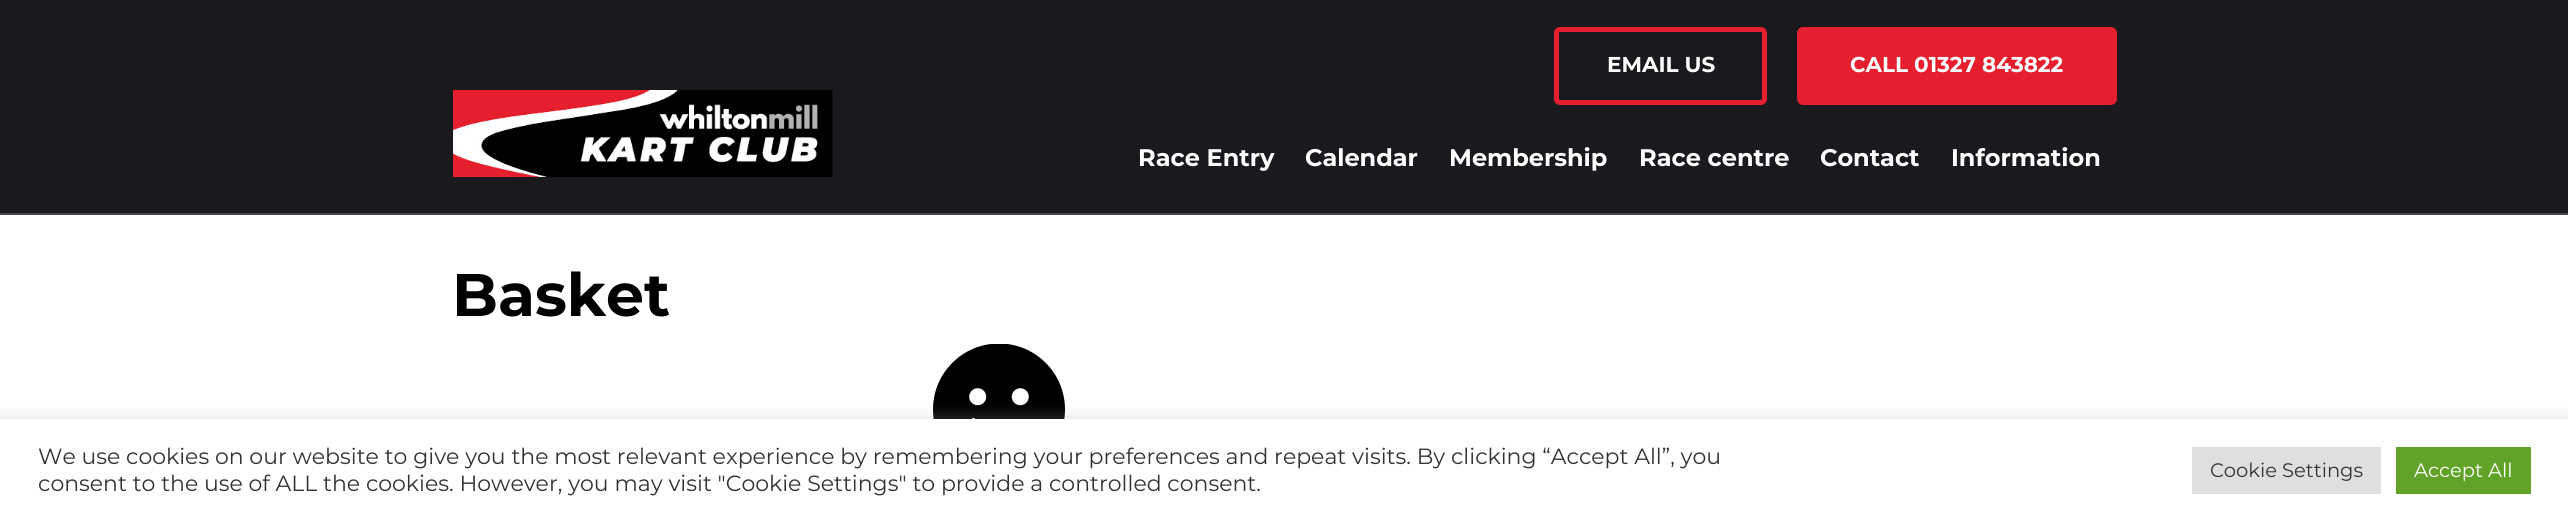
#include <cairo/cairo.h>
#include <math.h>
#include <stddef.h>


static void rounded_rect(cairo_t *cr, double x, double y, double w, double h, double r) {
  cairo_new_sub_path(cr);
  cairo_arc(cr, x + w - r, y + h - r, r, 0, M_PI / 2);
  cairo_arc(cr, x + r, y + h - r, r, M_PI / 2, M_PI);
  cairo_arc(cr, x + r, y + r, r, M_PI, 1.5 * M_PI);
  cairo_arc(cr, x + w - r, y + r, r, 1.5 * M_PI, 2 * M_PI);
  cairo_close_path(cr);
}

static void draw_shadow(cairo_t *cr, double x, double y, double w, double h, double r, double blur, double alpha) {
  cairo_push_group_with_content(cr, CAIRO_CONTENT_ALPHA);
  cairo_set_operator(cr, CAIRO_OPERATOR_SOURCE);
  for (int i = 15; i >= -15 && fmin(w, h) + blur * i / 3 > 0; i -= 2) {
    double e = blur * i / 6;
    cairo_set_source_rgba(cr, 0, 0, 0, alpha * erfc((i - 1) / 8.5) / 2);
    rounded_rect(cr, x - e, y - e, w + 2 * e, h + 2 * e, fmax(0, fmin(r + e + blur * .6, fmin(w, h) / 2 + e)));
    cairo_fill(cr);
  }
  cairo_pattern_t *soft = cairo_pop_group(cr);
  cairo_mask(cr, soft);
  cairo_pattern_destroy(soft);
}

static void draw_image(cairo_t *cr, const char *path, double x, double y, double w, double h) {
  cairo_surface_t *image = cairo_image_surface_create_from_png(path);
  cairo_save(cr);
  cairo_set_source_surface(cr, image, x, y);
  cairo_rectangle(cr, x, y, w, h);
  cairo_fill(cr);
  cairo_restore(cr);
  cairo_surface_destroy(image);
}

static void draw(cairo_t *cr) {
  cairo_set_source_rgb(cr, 1, 1, 1);
  cairo_paint(cr);
  cairo_set_source_rgb(cr, 26 / 255.0, 25 / 255.0, 30 / 255.0);
  cairo_rectangle(cr, 0, 0, 2568, 213);
  cairo_fill(cr);
  cairo_set_source_rgb(cr, 72 / 255.0, 72 / 255.0, 72 / 255.0);
  cairo_rectangle(cr, 0, 213, 2568, 2);
  cairo_fill(cr);
  draw_image(cr, "images/1.png", 453, 90, 380, 87);
  rounded_rect(cr, 1556.5, 29.5, 208, 73, 3.5);
  cairo_set_source_rgb(cr, 229 / 255.0, 31 / 255.0, 45 / 255.0);
  cairo_set_line_width(cr, 5);
  cairo_stroke(cr);
  rounded_rect(cr, 1799.5, 29.5, 315, 73, 3.5);
  cairo_fill_preserve(cr);
  cairo_stroke(cr);
  draw_image(cr, "images/2.png", 933, 344, 132, 75);
  cairo_set_source_rgb(cr, 172 / 255.0, 171 / 255.0, 171 / 255.0);
  draw_shadow(cr, 0, 417, 2568, 104, 0, 7.5, 0.3);
  cairo_set_source_rgb(cr, 1, 1, 1);
  cairo_rectangle(cr, 0, 419, 2568, 102);
  cairo_fill(cr);
  cairo_set_source_rgb(cr, 222 / 255.0, 223 / 255.0, 224 / 255.0);
  cairo_rectangle(cr, 2192, 447, 189, 47);
  cairo_fill(cr);
  cairo_set_source_rgb(cr, 97 / 255.0, 162 / 255.0, 41 / 255.0);
  cairo_rectangle(cr, 2396, 447, 135, 47);
  cairo_fill(cr);
  cairo_select_font_face(cr, "Montserrat", CAIRO_FONT_SLANT_NORMAL, CAIRO_FONT_WEIGHT_BOLD);
  cairo_set_font_size(cr, 21.5);
  cairo_set_source_rgb(cr, 1, 1, 1);
  cairo_move_to(cr, 1607, 72);
  cairo_show_text(cr, "EMAIL US");
  cairo_move_to(cr, 1850, 72);
  cairo_show_text(cr, "CALL 01327 843822");
  cairo_set_font_size(cr, 24);
  cairo_move_to(cr, 1138, 166);
  cairo_show_text(cr, "Race Entry");
  cairo_move_to(cr, 1305, 166);
  cairo_show_text(cr, "Calendar");
  cairo_move_to(cr, 1449, 166);
  cairo_show_text(cr, "Membership");
  cairo_move_to(cr, 1639, 166);
  cairo_show_text(cr, "Race centre");
  cairo_move_to(cr, 1820, 166);
  cairo_show_text(cr, "Contact");
  cairo_move_to(cr, 1951, 166);
  cairo_show_text(cr, "Information");
  cairo_set_font_size(cr, 60);
  cairo_set_source_rgb(cr, 0, 0, 0);
  cairo_move_to(cr, 452, 316);
  cairo_show_text(cr, "Basket");
  cairo_select_font_face(cr, "Montserrat", CAIRO_FONT_SLANT_NORMAL, CAIRO_FONT_WEIGHT_NORMAL);
  cairo_set_font_size(cr, 22);
  cairo_set_source_rgb(cr, 51 / 255.0, 51 / 255.0, 51 / 255.0);
  cairo_move_to(cr, 38, 464);
  cairo_show_text(cr, "We use cookies on our website to give you the most relevant experience by remembering your preferences and repeat visits. By clicking “Accept All”, you");
  cairo_move_to(cr, 38, 491);
  cairo_show_text(cr, "consent to the use of ALL the cookies. However, you may visit \"Cookie Settings\" to provide a controlled consent.");
  cairo_set_font_size(cr, 19.5);
  cairo_move_to(cr, 2210, 477);
  cairo_show_text(cr, "Cookie Settings");
  cairo_set_source_rgb(cr, 1, 1, 1);
  cairo_move_to(cr, 2414, 477);
  cairo_show_text(cr, "Accept All");
}

int main(void) {
  cairo_surface_t *surface = cairo_image_surface_create(CAIRO_FORMAT_RGB24, 2568, 521);
  cairo_t *cr = cairo_create(surface);
  cairo_font_options_t *options = cairo_font_options_create();
  cairo_font_options_set_hint_metrics(options, CAIRO_HINT_METRICS_OFF);
  cairo_font_options_set_hint_style(options, CAIRO_HINT_STYLE_NONE);
  cairo_set_font_options(cr, options);
  cairo_set_miter_limit(cr, 4);
  draw(cr);
  cairo_surface_write_to_png(surface, "out.png");
  cairo_font_options_destroy(options);
  cairo_destroy(cr);
  cairo_surface_destroy(surface);
  return 0;
}
